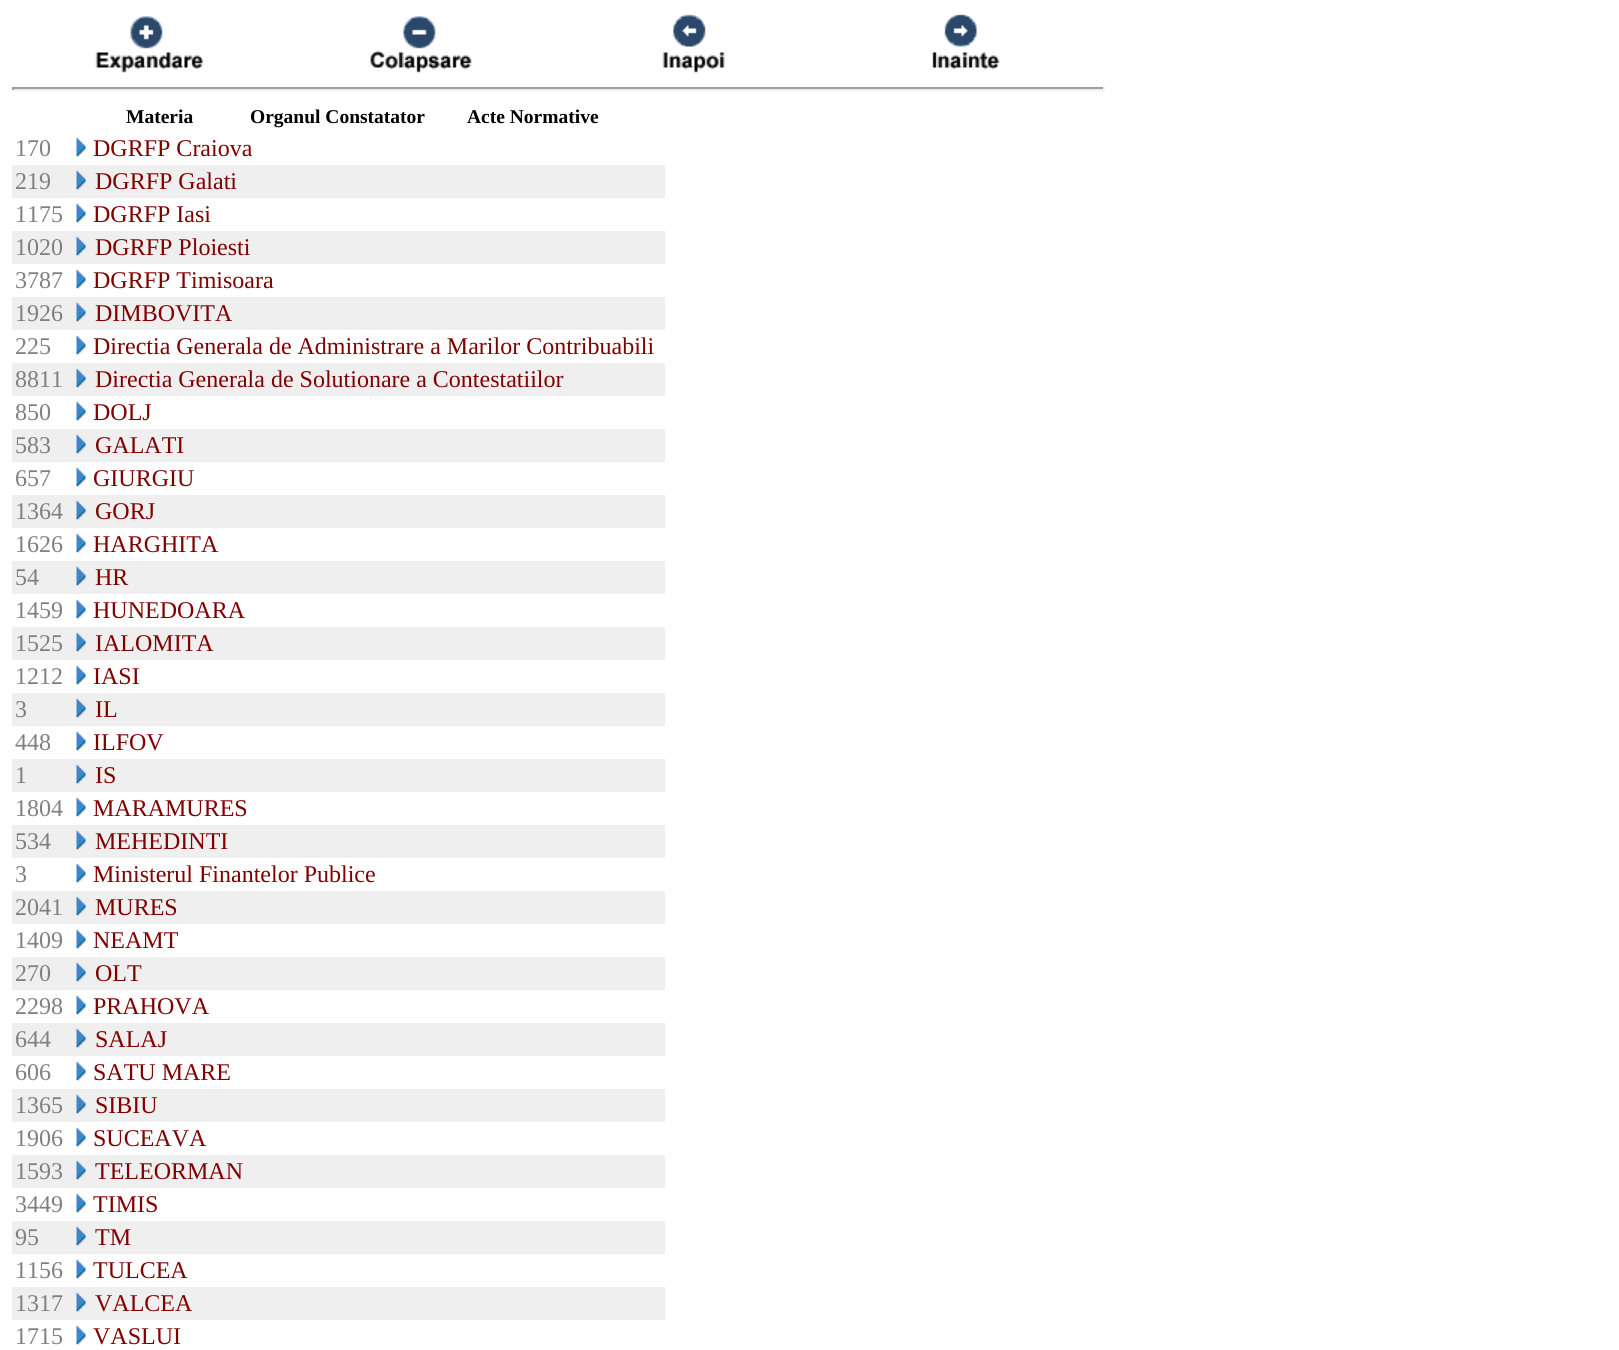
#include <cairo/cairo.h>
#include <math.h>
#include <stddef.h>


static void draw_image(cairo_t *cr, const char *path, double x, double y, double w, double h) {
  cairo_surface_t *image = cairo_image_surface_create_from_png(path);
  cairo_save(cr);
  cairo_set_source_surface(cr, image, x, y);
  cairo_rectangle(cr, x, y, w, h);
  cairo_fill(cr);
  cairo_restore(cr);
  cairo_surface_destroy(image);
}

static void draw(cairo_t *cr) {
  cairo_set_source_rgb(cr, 1, 1, 1);
  cairo_paint(cr);
  draw_image(cr, "images/1.png", 95, 16, 108, 57);
  draw_image(cr, "images/2.png", 370, 16, 102, 57);
  draw_image(cr, "images/3.png", 662, 14, 63, 59);
  draw_image(cr, "images/4.png", 932, 14, 68, 56);
  cairo_set_source_rgb(cr, 159 / 255.0, 159 / 255.0, 159 / 255.0);
  cairo_rectangle(cr, 12, 87, 1092, 2);
  cairo_fill(cr);
  cairo_set_source_rgb(cr, 238 / 255.0, 238 / 255.0, 238 / 255.0);
  cairo_rectangle(cr, 1103, 87, 2, 3);
  cairo_fill(cr);
  cairo_rectangle(cr, 12, 89, 1092, 2);
  cairo_fill(cr);
  cairo_set_source_rgb(cr, 159 / 255.0, 159 / 255.0, 159 / 255.0);
  cairo_rectangle(cr, 12, 87, 2, 3);
  cairo_fill(cr);
  draw_image(cr, "images/5.png", 76, 137, 10, 20);
  cairo_set_source_rgb(cr, 239 / 255.0, 239 / 255.0, 239 / 255.0);
  cairo_rectangle(cr, 12, 165, 653, 33);
  cairo_fill(cr);
  draw_image(cr, "images/6.png", 76, 170, 10, 20);
  draw_image(cr, "images/5.png", 76, 203, 10, 20);
  cairo_rectangle(cr, 12, 231, 653, 33);
  cairo_fill(cr);
  draw_image(cr, "images/6.png", 76, 236, 10, 20);
  draw_image(cr, "images/5.png", 76, 269, 10, 20);
  cairo_rectangle(cr, 12, 297, 653, 33);
  cairo_fill(cr);
  draw_image(cr, "images/6.png", 76, 302, 10, 20);
  draw_image(cr, "images/5.png", 76, 335, 10, 20);
  cairo_rectangle(cr, 12, 363, 653, 33);
  cairo_fill(cr);
  draw_image(cr, "images/6.png", 76, 368, 10, 20);
  draw_image(cr, "images/5.png", 76, 401, 10, 20);
  cairo_rectangle(cr, 12, 429, 653, 33);
  cairo_fill(cr);
  draw_image(cr, "images/6.png", 76, 434, 10, 20);
  draw_image(cr, "images/5.png", 76, 467, 10, 20);
  cairo_rectangle(cr, 12, 495, 653, 33);
  cairo_fill(cr);
  draw_image(cr, "images/6.png", 76, 500, 10, 20);
  draw_image(cr, "images/5.png", 76, 533, 10, 20);
  cairo_rectangle(cr, 12, 561, 653, 33);
  cairo_fill(cr);
  draw_image(cr, "images/6.png", 76, 566, 10, 20);
  draw_image(cr, "images/5.png", 76, 599, 10, 20);
  cairo_rectangle(cr, 12, 627, 653, 33);
  cairo_fill(cr);
  draw_image(cr, "images/6.png", 76, 632, 10, 20);
  draw_image(cr, "images/5.png", 76, 665, 10, 20);
  cairo_rectangle(cr, 12, 693, 653, 33);
  cairo_fill(cr);
  draw_image(cr, "images/6.png", 76, 698, 10, 20);
  draw_image(cr, "images/5.png", 76, 731, 10, 20);
  cairo_rectangle(cr, 12, 759, 653, 33);
  cairo_fill(cr);
  draw_image(cr, "images/6.png", 76, 764, 10, 20);
  draw_image(cr, "images/5.png", 76, 797, 10, 20);
  cairo_rectangle(cr, 12, 825, 653, 33);
  cairo_fill(cr);
  draw_image(cr, "images/6.png", 76, 830, 10, 20);
  draw_image(cr, "images/5.png", 76, 863, 10, 20);
  cairo_rectangle(cr, 12, 891, 653, 33);
  cairo_fill(cr);
  draw_image(cr, "images/6.png", 76, 896, 10, 20);
  draw_image(cr, "images/5.png", 76, 929, 10, 20);
  cairo_rectangle(cr, 12, 957, 653, 33);
  cairo_fill(cr);
  draw_image(cr, "images/6.png", 76, 962, 10, 20);
  draw_image(cr, "images/5.png", 76, 995, 10, 20);
  cairo_rectangle(cr, 12, 1023, 653, 33);
  cairo_fill(cr);
  draw_image(cr, "images/6.png", 76, 1028, 10, 20);
  draw_image(cr, "images/5.png", 76, 1061, 10, 20);
  cairo_rectangle(cr, 12, 1089, 653, 33);
  cairo_fill(cr);
  draw_image(cr, "images/6.png", 76, 1094, 10, 20);
  draw_image(cr, "images/5.png", 76, 1127, 10, 20);
  cairo_rectangle(cr, 12, 1155, 653, 33);
  cairo_fill(cr);
  draw_image(cr, "images/6.png", 76, 1160, 10, 20);
  draw_image(cr, "images/5.png", 76, 1193, 10, 20);
  cairo_rectangle(cr, 12, 1221, 653, 33);
  cairo_fill(cr);
  draw_image(cr, "images/6.png", 76, 1226, 10, 20);
  draw_image(cr, "images/5.png", 76, 1259, 10, 20);
  cairo_rectangle(cr, 12, 1287, 653, 33);
  cairo_fill(cr);
  draw_image(cr, "images/6.png", 76, 1292, 10, 20);
  draw_image(cr, "images/5.png", 76, 1325, 10, 20);
  cairo_select_font_face(cr, "Liberation Serif", CAIRO_FONT_SLANT_NORMAL, CAIRO_FONT_WEIGHT_BOLD);
  cairo_set_font_size(cr, 19.5);
  cairo_set_source_rgb(cr, 0, 0, 0);
  cairo_move_to(cr, 126, 123);
  cairo_show_text(cr, "Materia");
  cairo_move_to(cr, 250, 123);
  cairo_show_text(cr, "Organul Constatator");
  cairo_move_to(cr, 467, 123);
  cairo_show_text(cr, "Acte Normative");
  cairo_select_font_face(cr, "Liberation Serif", CAIRO_FONT_SLANT_NORMAL, CAIRO_FONT_WEIGHT_NORMAL);
  cairo_set_font_size(cr, 24);
  cairo_set_source_rgb(cr, 128 / 255.0, 128 / 255.0, 128 / 255.0);
  cairo_move_to(cr, 15, 156);
  cairo_show_text(cr, "170");
  cairo_set_source_rgb(cr, 128 / 255.0, 0, 0);
  cairo_move_to(cr, 93, 156);
  cairo_show_text(cr, "DGRFP Craiova");
  cairo_set_source_rgb(cr, 128 / 255.0, 128 / 255.0, 128 / 255.0);
  cairo_move_to(cr, 15, 189);
  cairo_show_text(cr, "219");
  cairo_set_source_rgb(cr, 128 / 255.0, 0, 0);
  cairo_move_to(cr, 95, 189);
  cairo_show_text(cr, "DGRFP Galati");
  cairo_set_source_rgb(cr, 128 / 255.0, 128 / 255.0, 128 / 255.0);
  cairo_move_to(cr, 15, 222);
  cairo_show_text(cr, "1175");
  cairo_set_source_rgb(cr, 128 / 255.0, 0, 0);
  cairo_move_to(cr, 93, 222);
  cairo_show_text(cr, "DGRFP Iasi");
  cairo_set_source_rgb(cr, 128 / 255.0, 128 / 255.0, 128 / 255.0);
  cairo_move_to(cr, 15, 255);
  cairo_show_text(cr, "1020");
  cairo_set_source_rgb(cr, 128 / 255.0, 0, 0);
  cairo_move_to(cr, 95, 255);
  cairo_show_text(cr, "DGRFP Ploiesti");
  cairo_set_source_rgb(cr, 128 / 255.0, 128 / 255.0, 128 / 255.0);
  cairo_move_to(cr, 15, 288);
  cairo_show_text(cr, "3787");
  cairo_set_source_rgb(cr, 128 / 255.0, 0, 0);
  cairo_move_to(cr, 93, 288);
  cairo_show_text(cr, "DGRFP Timisoara");
  cairo_set_source_rgb(cr, 128 / 255.0, 128 / 255.0, 128 / 255.0);
  cairo_move_to(cr, 15, 321);
  cairo_show_text(cr, "1926");
  cairo_set_source_rgb(cr, 128 / 255.0, 0, 0);
  cairo_move_to(cr, 95, 321);
  cairo_show_text(cr, "DIMBOVITA");
  cairo_set_source_rgb(cr, 128 / 255.0, 128 / 255.0, 128 / 255.0);
  cairo_move_to(cr, 15, 354);
  cairo_show_text(cr, "225");
  cairo_set_source_rgb(cr, 128 / 255.0, 0, 0);
  cairo_move_to(cr, 93, 354);
  cairo_show_text(cr, "Directia Generala de Administrare a Marilor Contribuabili");
  cairo_set_source_rgb(cr, 128 / 255.0, 128 / 255.0, 128 / 255.0);
  cairo_move_to(cr, 15, 387);
  cairo_show_text(cr, "8811");
  cairo_set_source_rgb(cr, 128 / 255.0, 0, 0);
  cairo_move_to(cr, 95, 387);
  cairo_show_text(cr, "Directia Generala de Solutionare a Contestatiilor");
  cairo_set_source_rgb(cr, 128 / 255.0, 128 / 255.0, 128 / 255.0);
  cairo_move_to(cr, 15, 420);
  cairo_show_text(cr, "850");
  cairo_set_source_rgb(cr, 128 / 255.0, 0, 0);
  cairo_move_to(cr, 93, 420);
  cairo_show_text(cr, "DOLJ");
  cairo_set_source_rgb(cr, 128 / 255.0, 128 / 255.0, 128 / 255.0);
  cairo_move_to(cr, 15, 453);
  cairo_show_text(cr, "583");
  cairo_set_source_rgb(cr, 128 / 255.0, 0, 0);
  cairo_move_to(cr, 95, 453);
  cairo_show_text(cr, "GALATI");
  cairo_set_source_rgb(cr, 128 / 255.0, 128 / 255.0, 128 / 255.0);
  cairo_move_to(cr, 15, 486);
  cairo_show_text(cr, "657");
  cairo_set_source_rgb(cr, 128 / 255.0, 0, 0);
  cairo_move_to(cr, 93, 486);
  cairo_show_text(cr, "GIURGIU");
  cairo_set_source_rgb(cr, 128 / 255.0, 128 / 255.0, 128 / 255.0);
  cairo_move_to(cr, 15, 519);
  cairo_show_text(cr, "1364");
  cairo_set_source_rgb(cr, 128 / 255.0, 0, 0);
  cairo_move_to(cr, 95, 519);
  cairo_show_text(cr, "GORJ");
  cairo_set_source_rgb(cr, 128 / 255.0, 128 / 255.0, 128 / 255.0);
  cairo_move_to(cr, 15, 552);
  cairo_show_text(cr, "1626");
  cairo_set_source_rgb(cr, 128 / 255.0, 0, 0);
  cairo_move_to(cr, 93, 552);
  cairo_show_text(cr, "HARGHITA");
  cairo_set_source_rgb(cr, 128 / 255.0, 128 / 255.0, 128 / 255.0);
  cairo_move_to(cr, 15, 585);
  cairo_show_text(cr, "54");
  cairo_set_source_rgb(cr, 128 / 255.0, 0, 0);
  cairo_move_to(cr, 95, 585);
  cairo_show_text(cr, "HR");
  cairo_set_source_rgb(cr, 128 / 255.0, 128 / 255.0, 128 / 255.0);
  cairo_move_to(cr, 15, 618);
  cairo_show_text(cr, "1459");
  cairo_set_source_rgb(cr, 128 / 255.0, 0, 0);
  cairo_move_to(cr, 93, 618);
  cairo_show_text(cr, "HUNEDOARA");
  cairo_set_source_rgb(cr, 128 / 255.0, 128 / 255.0, 128 / 255.0);
  cairo_move_to(cr, 15, 651);
  cairo_show_text(cr, "1525");
  cairo_set_source_rgb(cr, 128 / 255.0, 0, 0);
  cairo_move_to(cr, 95, 651);
  cairo_show_text(cr, "IALOMITA");
  cairo_set_source_rgb(cr, 128 / 255.0, 128 / 255.0, 128 / 255.0);
  cairo_move_to(cr, 15, 684);
  cairo_show_text(cr, "1212");
  cairo_set_source_rgb(cr, 128 / 255.0, 0, 0);
  cairo_move_to(cr, 93, 684);
  cairo_show_text(cr, "IASI");
  cairo_set_source_rgb(cr, 128 / 255.0, 128 / 255.0, 128 / 255.0);
  cairo_move_to(cr, 15, 717);
  cairo_show_text(cr, "3");
  cairo_set_source_rgb(cr, 128 / 255.0, 0, 0);
  cairo_move_to(cr, 95, 717);
  cairo_show_text(cr, "IL");
  cairo_set_source_rgb(cr, 128 / 255.0, 128 / 255.0, 128 / 255.0);
  cairo_move_to(cr, 15, 750);
  cairo_show_text(cr, "448");
  cairo_set_source_rgb(cr, 128 / 255.0, 0, 0);
  cairo_move_to(cr, 93, 750);
  cairo_show_text(cr, "ILFOV");
  cairo_set_source_rgb(cr, 128 / 255.0, 128 / 255.0, 128 / 255.0);
  cairo_move_to(cr, 15, 783);
  cairo_show_text(cr, "1");
  cairo_set_source_rgb(cr, 128 / 255.0, 0, 0);
  cairo_move_to(cr, 95, 783);
  cairo_show_text(cr, "IS");
  cairo_set_source_rgb(cr, 128 / 255.0, 128 / 255.0, 128 / 255.0);
  cairo_move_to(cr, 15, 816);
  cairo_show_text(cr, "1804");
  cairo_set_source_rgb(cr, 128 / 255.0, 0, 0);
  cairo_move_to(cr, 93, 816);
  cairo_show_text(cr, "MARAMURES");
  cairo_set_source_rgb(cr, 128 / 255.0, 128 / 255.0, 128 / 255.0);
  cairo_move_to(cr, 15, 849);
  cairo_show_text(cr, "534");
  cairo_set_source_rgb(cr, 128 / 255.0, 0, 0);
  cairo_move_to(cr, 95, 849);
  cairo_show_text(cr, "MEHEDINTI");
  cairo_set_source_rgb(cr, 128 / 255.0, 128 / 255.0, 128 / 255.0);
  cairo_move_to(cr, 15, 882);
  cairo_show_text(cr, "3");
  cairo_set_source_rgb(cr, 128 / 255.0, 0, 0);
  cairo_move_to(cr, 93, 882);
  cairo_show_text(cr, "Ministerul Finantelor Publice");
  cairo_set_source_rgb(cr, 128 / 255.0, 128 / 255.0, 128 / 255.0);
  cairo_move_to(cr, 15, 915);
  cairo_show_text(cr, "2041");
  cairo_set_source_rgb(cr, 128 / 255.0, 0, 0);
  cairo_move_to(cr, 95, 915);
  cairo_show_text(cr, "MURES");
  cairo_set_source_rgb(cr, 128 / 255.0, 128 / 255.0, 128 / 255.0);
  cairo_move_to(cr, 15, 948);
  cairo_show_text(cr, "1409");
  cairo_set_source_rgb(cr, 128 / 255.0, 0, 0);
  cairo_move_to(cr, 93, 948);
  cairo_show_text(cr, "NEAMT");
  cairo_set_source_rgb(cr, 128 / 255.0, 128 / 255.0, 128 / 255.0);
  cairo_move_to(cr, 15, 981);
  cairo_show_text(cr, "270");
  cairo_set_source_rgb(cr, 128 / 255.0, 0, 0);
  cairo_move_to(cr, 95, 981);
  cairo_show_text(cr, "OLT");
  cairo_set_source_rgb(cr, 128 / 255.0, 128 / 255.0, 128 / 255.0);
  cairo_move_to(cr, 15, 1014);
  cairo_show_text(cr, "2298");
  cairo_set_source_rgb(cr, 128 / 255.0, 0, 0);
  cairo_move_to(cr, 93, 1014);
  cairo_show_text(cr, "PRAHOVA");
  cairo_set_source_rgb(cr, 128 / 255.0, 128 / 255.0, 128 / 255.0);
  cairo_move_to(cr, 15, 1047);
  cairo_show_text(cr, "644");
  cairo_set_source_rgb(cr, 128 / 255.0, 0, 0);
  cairo_move_to(cr, 95, 1047);
  cairo_show_text(cr, "SALAJ");
  cairo_set_source_rgb(cr, 128 / 255.0, 128 / 255.0, 128 / 255.0);
  cairo_move_to(cr, 15, 1080);
  cairo_show_text(cr, "606");
  cairo_set_source_rgb(cr, 128 / 255.0, 0, 0);
  cairo_move_to(cr, 93, 1080);
  cairo_show_text(cr, "SATU MARE");
  cairo_set_source_rgb(cr, 128 / 255.0, 128 / 255.0, 128 / 255.0);
  cairo_move_to(cr, 15, 1113);
  cairo_show_text(cr, "1365");
  cairo_set_source_rgb(cr, 128 / 255.0, 0, 0);
  cairo_move_to(cr, 95, 1113);
  cairo_show_text(cr, "SIBIU");
  cairo_set_source_rgb(cr, 128 / 255.0, 128 / 255.0, 128 / 255.0);
  cairo_move_to(cr, 15, 1146);
  cairo_show_text(cr, "1906");
  cairo_set_source_rgb(cr, 128 / 255.0, 0, 0);
  cairo_move_to(cr, 93, 1146);
  cairo_show_text(cr, "SUCEAVA");
  cairo_set_source_rgb(cr, 128 / 255.0, 128 / 255.0, 128 / 255.0);
  cairo_move_to(cr, 15, 1179);
  cairo_show_text(cr, "1593");
  cairo_set_source_rgb(cr, 128 / 255.0, 0, 0);
  cairo_move_to(cr, 95, 1179);
  cairo_show_text(cr, "TELEORMAN");
  cairo_set_source_rgb(cr, 128 / 255.0, 128 / 255.0, 128 / 255.0);
  cairo_move_to(cr, 15, 1212);
  cairo_show_text(cr, "3449");
  cairo_set_source_rgb(cr, 128 / 255.0, 0, 0);
  cairo_move_to(cr, 93, 1212);
  cairo_show_text(cr, "TIMIS");
  cairo_set_source_rgb(cr, 128 / 255.0, 128 / 255.0, 128 / 255.0);
  cairo_move_to(cr, 15, 1245);
  cairo_show_text(cr, "95");
  cairo_set_source_rgb(cr, 128 / 255.0, 0, 0);
  cairo_move_to(cr, 95, 1245);
  cairo_show_text(cr, "TM");
  cairo_set_source_rgb(cr, 128 / 255.0, 128 / 255.0, 128 / 255.0);
  cairo_move_to(cr, 15, 1278);
  cairo_show_text(cr, "1156");
  cairo_set_source_rgb(cr, 128 / 255.0, 0, 0);
  cairo_move_to(cr, 93, 1278);
  cairo_show_text(cr, "TULCEA");
  cairo_set_source_rgb(cr, 128 / 255.0, 128 / 255.0, 128 / 255.0);
  cairo_move_to(cr, 15, 1311);
  cairo_show_text(cr, "1317");
  cairo_set_source_rgb(cr, 128 / 255.0, 0, 0);
  cairo_move_to(cr, 95, 1311);
  cairo_show_text(cr, "VALCEA");
  cairo_set_source_rgb(cr, 128 / 255.0, 128 / 255.0, 128 / 255.0);
  cairo_move_to(cr, 15, 1344);
  cairo_show_text(cr, "1715");
  cairo_set_source_rgb(cr, 128 / 255.0, 0, 0);
  cairo_move_to(cr, 93, 1344);
  cairo_show_text(cr, "VASLUI");
}

int main(void) {
  cairo_surface_t *surface = cairo_image_surface_create(CAIRO_FORMAT_RGB24, 1619, 1350);
  cairo_t *cr = cairo_create(surface);
  cairo_font_options_t *options = cairo_font_options_create();
  cairo_font_options_set_hint_metrics(options, CAIRO_HINT_METRICS_OFF);
  cairo_font_options_set_hint_style(options, CAIRO_HINT_STYLE_NONE);
  cairo_set_font_options(cr, options);
  cairo_set_miter_limit(cr, 4);
  draw(cr);
  cairo_surface_write_to_png(surface, "out.png");
  cairo_font_options_destroy(options);
  cairo_destroy(cr);
  cairo_surface_destroy(surface);
  return 0;
}
